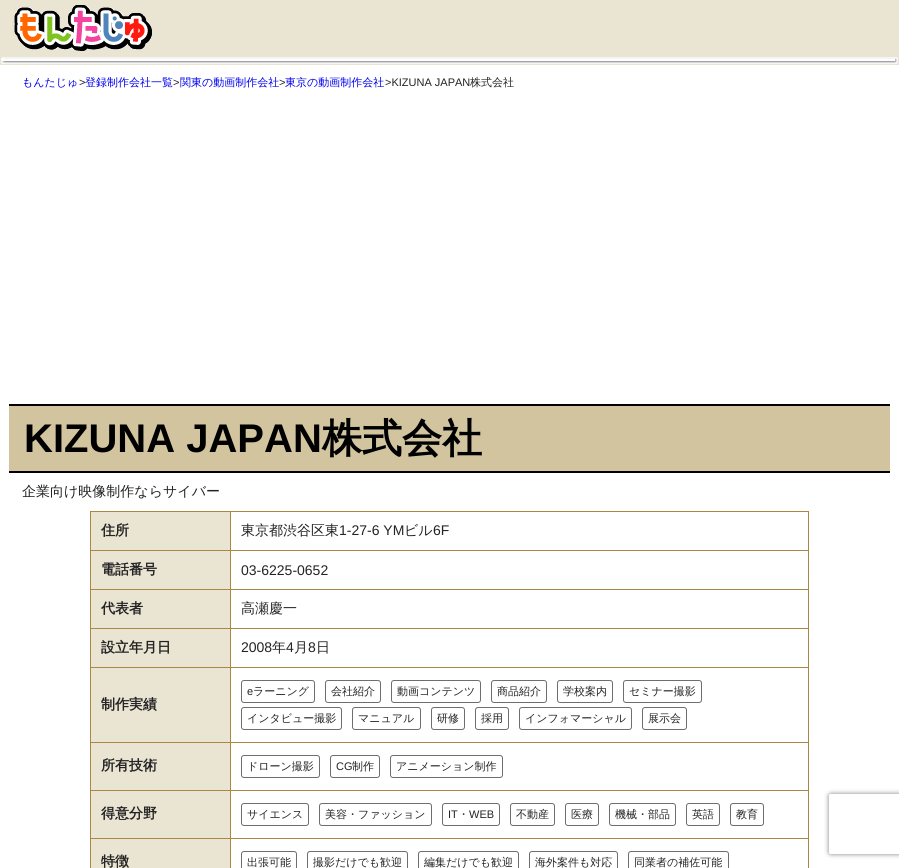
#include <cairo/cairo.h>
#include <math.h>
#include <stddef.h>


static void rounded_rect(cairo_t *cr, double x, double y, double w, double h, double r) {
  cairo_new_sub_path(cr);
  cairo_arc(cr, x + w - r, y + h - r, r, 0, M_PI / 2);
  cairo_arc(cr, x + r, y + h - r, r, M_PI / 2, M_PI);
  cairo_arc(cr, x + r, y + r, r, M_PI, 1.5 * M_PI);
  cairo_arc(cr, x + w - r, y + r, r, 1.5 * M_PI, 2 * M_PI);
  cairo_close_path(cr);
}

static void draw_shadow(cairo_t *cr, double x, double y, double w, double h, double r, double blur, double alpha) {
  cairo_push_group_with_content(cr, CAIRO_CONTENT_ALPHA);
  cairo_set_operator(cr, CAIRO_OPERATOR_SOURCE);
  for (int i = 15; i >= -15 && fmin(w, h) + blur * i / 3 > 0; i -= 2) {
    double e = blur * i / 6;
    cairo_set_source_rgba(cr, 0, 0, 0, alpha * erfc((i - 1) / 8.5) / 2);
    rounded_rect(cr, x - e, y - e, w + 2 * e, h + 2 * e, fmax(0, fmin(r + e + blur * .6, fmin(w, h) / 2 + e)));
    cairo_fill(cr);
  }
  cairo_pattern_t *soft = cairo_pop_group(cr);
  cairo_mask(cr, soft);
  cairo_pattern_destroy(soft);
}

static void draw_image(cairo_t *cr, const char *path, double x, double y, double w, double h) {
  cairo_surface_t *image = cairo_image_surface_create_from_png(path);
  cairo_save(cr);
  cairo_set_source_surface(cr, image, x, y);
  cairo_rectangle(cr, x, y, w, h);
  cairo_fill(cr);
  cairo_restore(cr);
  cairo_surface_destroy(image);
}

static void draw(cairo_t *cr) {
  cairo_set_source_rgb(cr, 1, 1, 1);
  cairo_paint(cr);
  cairo_set_source_rgb(cr, 234 / 255.0, 228 / 255.0, 211 / 255.0);
  cairo_rectangle(cr, 0, 0, 899, 65);
  cairo_fill(cr);
  draw_image(cr, "images/1.png", 14, 5, 138, 46);
  draw_image(cr, "images/2.png", 1, 57, 897, 7);
  cairo_set_source_rgb(cr, 209 / 255.0, 196 / 255.0, 159 / 255.0);
  cairo_rectangle(cr, 9, 406, 881, 65);
  cairo_fill(cr);
  cairo_set_source_rgb(cr, 0, 0, 0);
  cairo_rectangle(cr, 9, 404, 881, 2);
  cairo_fill(cr);
  cairo_rectangle(cr, 9, 471, 881, 2);
  cairo_fill(cr);
  cairo_set_source_rgb(cr, 170 / 255.0, 136 / 255.0, 68 / 255.0);
  cairo_rectangle(cr, 90, 511, 719, 1);
  cairo_fill(cr);
  cairo_rectangle(cr, 90, 550, 719, 1);
  cairo_fill(cr);
  cairo_rectangle(cr, 90, 589, 719, 1);
  cairo_fill(cr);
  cairo_rectangle(cr, 90, 628, 719, 1);
  cairo_fill(cr);
  cairo_rectangle(cr, 90, 667, 719, 1);
  cairo_fill(cr);
  cairo_rectangle(cr, 90, 742, 719, 1);
  cairo_fill(cr);
  cairo_rectangle(cr, 90, 790, 719, 1);
  cairo_fill(cr);
  cairo_rectangle(cr, 90, 838, 719, 1);
  cairo_fill(cr);
  cairo_rectangle(cr, 808, 838, 1, 30);
  cairo_fill(cr);
  cairo_rectangle(cr, 808, 790, 1, 49);
  cairo_fill(cr);
  cairo_rectangle(cr, 808, 742, 1, 49);
  cairo_fill(cr);
  cairo_rectangle(cr, 808, 667, 1, 76);
  cairo_fill(cr);
  cairo_rectangle(cr, 808, 628, 1, 40);
  cairo_fill(cr);
  cairo_rectangle(cr, 808, 589, 1, 40);
  cairo_fill(cr);
  cairo_rectangle(cr, 808, 550, 1, 40);
  cairo_fill(cr);
  cairo_rectangle(cr, 808, 511, 1, 40);
  cairo_fill(cr);
  cairo_rectangle(cr, 90, 838, 1, 30);
  cairo_fill(cr);
  cairo_rectangle(cr, 90, 790, 1, 49);
  cairo_fill(cr);
  cairo_rectangle(cr, 90, 742, 1, 49);
  cairo_fill(cr);
  cairo_rectangle(cr, 90, 667, 1, 76);
  cairo_fill(cr);
  cairo_rectangle(cr, 90, 628, 1, 40);
  cairo_fill(cr);
  cairo_rectangle(cr, 90, 589, 1, 40);
  cairo_fill(cr);
  cairo_rectangle(cr, 90, 550, 1, 40);
  cairo_fill(cr);
  cairo_rectangle(cr, 90, 511, 1, 40);
  cairo_fill(cr);
  cairo_set_source_rgb(cr, 234 / 255.0, 228 / 255.0, 211 / 255.0);
  cairo_rectangle(cr, 91, 512, 139, 38);
  cairo_fill(cr);
  cairo_rectangle(cr, 91, 551, 139, 38);
  cairo_fill(cr);
  cairo_rectangle(cr, 91, 590, 139, 38);
  cairo_fill(cr);
  cairo_rectangle(cr, 91, 629, 139, 38);
  cairo_fill(cr);
  cairo_rectangle(cr, 91, 668, 139, 74);
  cairo_fill(cr);
  rounded_rect(cr, 241.5, 680.5, 73, 22, 2.5);
  cairo_set_source_rgb(cr, 110 / 255.0, 110 / 255.0, 110 / 255.0);
  cairo_set_line_width(cr, 1);
  cairo_stroke(cr);
  rounded_rect(cr, 325.5, 680.5, 55, 22, 2.5);
  cairo_stroke(cr);
  rounded_rect(cr, 391.5, 680.5, 89, 22, 2.5);
  cairo_stroke(cr);
  rounded_rect(cr, 491.5, 680.5, 55, 22, 2.5);
  cairo_stroke(cr);
  rounded_rect(cr, 557.5, 680.5, 55, 22, 2.5);
  cairo_stroke(cr);
  rounded_rect(cr, 623.5, 680.5, 78, 22, 2.5);
  cairo_stroke(cr);
  rounded_rect(cr, 241.5, 707.5, 100, 22, 2.5);
  cairo_stroke(cr);
  rounded_rect(cr, 352.5, 707.5, 68, 22, 2.5);
  cairo_stroke(cr);
  rounded_rect(cr, 431.5, 707.5, 33, 22, 2.5);
  cairo_stroke(cr);
  rounded_rect(cr, 475.5, 707.5, 33, 22, 2.5);
  cairo_stroke(cr);
  rounded_rect(cr, 519.5, 707.5, 112, 22, 2.5);
  cairo_stroke(cr);
  rounded_rect(cr, 642.5, 707.5, 44, 22, 2.5);
  cairo_stroke(cr);
  cairo_set_source_rgb(cr, 234 / 255.0, 228 / 255.0, 211 / 255.0);
  cairo_rectangle(cr, 91, 743, 139, 47);
  cairo_fill(cr);
  rounded_rect(cr, 241.5, 755.5, 78, 22, 2.5);
  cairo_set_source_rgb(cr, 110 / 255.0, 110 / 255.0, 110 / 255.0);
  cairo_stroke(cr);
  rounded_rect(cr, 330.5, 755.5, 49, 22, 2.5);
  cairo_stroke(cr);
  rounded_rect(cr, 390.5, 755.5, 112, 22, 2.5);
  cairo_stroke(cr);
  cairo_set_source_rgb(cr, 234 / 255.0, 228 / 255.0, 211 / 255.0);
  cairo_rectangle(cr, 91, 791, 139, 47);
  cairo_fill(cr);
  rounded_rect(cr, 241.5, 803.5, 67, 22, 2.5);
  cairo_set_source_rgb(cr, 110 / 255.0, 110 / 255.0, 110 / 255.0);
  cairo_stroke(cr);
  rounded_rect(cr, 319.5, 803.5, 112, 22, 2.5);
  cairo_stroke(cr);
  rounded_rect(cr, 442.5, 803.5, 57, 22, 2.5);
  cairo_stroke(cr);
  rounded_rect(cr, 510.5, 803.5, 44, 22, 2.5);
  cairo_stroke(cr);
  rounded_rect(cr, 565.5, 803.5, 33, 22, 2.5);
  cairo_stroke(cr);
  rounded_rect(cr, 609.5, 803.5, 66, 22, 2.5);
  cairo_stroke(cr);
  rounded_rect(cr, 686.5, 803.5, 33, 22, 2.5);
  cairo_stroke(cr);
  rounded_rect(cr, 730.5, 803.5, 33, 22, 2.5);
  cairo_stroke(cr);
  cairo_set_source_rgb(cr, 234 / 255.0, 228 / 255.0, 211 / 255.0);
  cairo_rectangle(cr, 91, 839, 139, 29);
  cairo_fill(cr);
  cairo_set_source_rgb(cr, 170 / 255.0, 136 / 255.0, 68 / 255.0);
  cairo_rectangle(cr, 230, 511, 1, 357);
  cairo_fill(cr);
  rounded_rect(cr, 241.5, 851.5, 55, 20, 2.5);
  cairo_set_source_rgb(cr, 110 / 255.0, 110 / 255.0, 110 / 255.0);
  cairo_stroke(cr);
  rounded_rect(cr, 307.5, 851.5, 100, 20, 2.5);
  cairo_stroke(cr);
  rounded_rect(cr, 418.5, 851.5, 100, 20, 2.5);
  cairo_stroke(cr);
  rounded_rect(cr, 529.5, 851.5, 88, 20, 2.5);
  cairo_stroke(cr);
  rounded_rect(cr, 628.5, 851.5, 100, 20, 2.5);
  cairo_stroke(cr);
  cairo_save(cr);
  cairo_set_fill_rule(cr, CAIRO_FILL_RULE_EVEN_ODD);
  cairo_new_path(cr);
  cairo_move_to(cr, 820, 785);
  cairo_line_to(cr, 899, 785);
  cairo_line_to(cr, 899, 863);
  cairo_line_to(cr, 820, 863);
  cairo_close_path(cr);
  cairo_move_to(cr, 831, 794);
  cairo_line_to(cr, 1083, 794);
  cairo_curve_to(cr, 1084, 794, 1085, 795, 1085, 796);
  cairo_line_to(cr, 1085, 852);
  cairo_curve_to(cr, 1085, 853, 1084, 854, 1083, 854);
  cairo_line_to(cr, 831, 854);
  cairo_curve_to(cr, 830, 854, 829, 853, 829, 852);
  cairo_line_to(cr, 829, 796);
  cairo_curve_to(cr, 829, 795, 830, 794, 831, 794);
  cairo_close_path(cr);
  cairo_clip(cr);
  cairo_set_source_rgb(cr, 128 / 255.0, 128 / 255.0, 128 / 255.0);
  draw_shadow(cr, 829, 794, 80, 60, 2, 2.5, 1);
  cairo_restore(cr);
  cairo_select_font_face(cr, "WenQuanYi Zen Hei Medium", CAIRO_FONT_SLANT_NORMAL, CAIRO_FONT_WEIGHT_NORMAL);
  cairo_set_font_size(cr, 11);
  cairo_set_source_rgb(cr, 0, 0, 238 / 255.0);
  cairo_move_to(cr, 22, 86);
  cairo_show_text(cr, "もんたじゅ");
  cairo_select_font_face(cr, "Liberation Sans", CAIRO_FONT_SLANT_NORMAL, CAIRO_FONT_WEIGHT_NORMAL);
  cairo_set_source_rgb(cr, 35 / 255.0, 35 / 255.0, 35 / 255.0);
  cairo_move_to(cr, 79, 86);
  cairo_show_text(cr, ">");
  cairo_select_font_face(cr, "WenQuanYi Zen Hei Medium", CAIRO_FONT_SLANT_NORMAL, CAIRO_FONT_WEIGHT_NORMAL);
  cairo_set_source_rgb(cr, 0, 0, 238 / 255.0);
  cairo_move_to(cr, 85, 86);
  cairo_show_text(cr, "登録制作会社一覧");
  cairo_select_font_face(cr, "Liberation Sans", CAIRO_FONT_SLANT_NORMAL, CAIRO_FONT_WEIGHT_NORMAL);
  cairo_set_source_rgb(cr, 35 / 255.0, 35 / 255.0, 35 / 255.0);
  cairo_move_to(cr, 173, 86);
  cairo_show_text(cr, ">");
  cairo_select_font_face(cr, "WenQuanYi Zen Hei Medium", CAIRO_FONT_SLANT_NORMAL, CAIRO_FONT_WEIGHT_NORMAL);
  cairo_set_source_rgb(cr, 0, 0, 238 / 255.0);
  cairo_move_to(cr, 180, 86);
  cairo_show_text(cr, "関東の動画制作会社");
  cairo_select_font_face(cr, "Liberation Sans", CAIRO_FONT_SLANT_NORMAL, CAIRO_FONT_WEIGHT_NORMAL);
  cairo_set_source_rgb(cr, 35 / 255.0, 35 / 255.0, 35 / 255.0);
  cairo_move_to(cr, 279, 86);
  cairo_show_text(cr, ">");
  cairo_select_font_face(cr, "WenQuanYi Zen Hei Medium", CAIRO_FONT_SLANT_NORMAL, CAIRO_FONT_WEIGHT_NORMAL);
  cairo_set_source_rgb(cr, 0, 0, 238 / 255.0);
  cairo_move_to(cr, 285, 86);
  cairo_show_text(cr, "東京の動画制作会社");
  cairo_select_font_face(cr, "Liberation Sans", CAIRO_FONT_SLANT_NORMAL, CAIRO_FONT_WEIGHT_NORMAL);
  cairo_set_source_rgb(cr, 35 / 255.0, 35 / 255.0, 35 / 255.0);
  cairo_move_to(cr, 385, 86);
  cairo_show_text(cr, ">KIZUNA JAPAN");
  cairo_select_font_face(cr, "WenQuanYi Zen Hei Medium", CAIRO_FONT_SLANT_NORMAL, CAIRO_FONT_WEIGHT_NORMAL);
  cairo_move_to(cr, 470, 86);
  cairo_show_text(cr, "株式会社");
  cairo_select_font_face(cr, "Liberation Sans", CAIRO_FONT_SLANT_NORMAL, CAIRO_FONT_WEIGHT_BOLD);
  cairo_set_font_size(cr, 40);
  cairo_set_source_rgb(cr, 0, 0, 0);
  cairo_move_to(cr, 24, 452);
  cairo_show_text(cr, "KIZUNA JAPAN");
  cairo_select_font_face(cr, "WenQuanYi Zen Hei", CAIRO_FONT_SLANT_NORMAL, CAIRO_FONT_WEIGHT_BOLD);
  cairo_move_to(cr, 322, 452);
  cairo_show_text(cr, "株式会社");
  cairo_select_font_face(cr, "WenQuanYi Zen Hei Medium", CAIRO_FONT_SLANT_NORMAL, CAIRO_FONT_WEIGHT_NORMAL);
  cairo_set_font_size(cr, 14);
  cairo_set_source_rgb(cr, 35 / 255.0, 35 / 255.0, 35 / 255.0);
  cairo_move_to(cr, 22, 496);
  cairo_show_text(cr, "企業向け映像制作ならサイバー");
  cairo_select_font_face(cr, "WenQuanYi Zen Hei", CAIRO_FONT_SLANT_NORMAL, CAIRO_FONT_WEIGHT_BOLD);
  cairo_move_to(cr, 101, 535);
  cairo_show_text(cr, "住所");
  cairo_select_font_face(cr, "WenQuanYi Zen Hei Medium", CAIRO_FONT_SLANT_NORMAL, CAIRO_FONT_WEIGHT_NORMAL);
  cairo_move_to(cr, 241, 535);
  cairo_show_text(cr, "東京都渋谷区東");
  cairo_select_font_face(cr, "Liberation Sans", CAIRO_FONT_SLANT_NORMAL, CAIRO_FONT_WEIGHT_NORMAL);
  cairo_move_to(cr, 339, 535);
  cairo_show_text(cr, "1-27-6 YM");
  cairo_select_font_face(cr, "WenQuanYi Zen Hei Medium", CAIRO_FONT_SLANT_NORMAL, CAIRO_FONT_WEIGHT_NORMAL);
  cairo_move_to(cr, 404, 535);
  cairo_show_text(cr, "ビル");
  cairo_select_font_face(cr, "Liberation Sans", CAIRO_FONT_SLANT_NORMAL, CAIRO_FONT_WEIGHT_NORMAL);
  cairo_move_to(cr, 433, 535);
  cairo_show_text(cr, "6F");
  cairo_select_font_face(cr, "WenQuanYi Zen Hei", CAIRO_FONT_SLANT_NORMAL, CAIRO_FONT_WEIGHT_BOLD);
  cairo_move_to(cr, 101, 574);
  cairo_show_text(cr, "電話番号");
  cairo_select_font_face(cr, "Liberation Sans", CAIRO_FONT_SLANT_NORMAL, CAIRO_FONT_WEIGHT_NORMAL);
  cairo_move_to(cr, 241, 575);
  cairo_show_text(cr, "03-6225-0652");
  cairo_select_font_face(cr, "WenQuanYi Zen Hei", CAIRO_FONT_SLANT_NORMAL, CAIRO_FONT_WEIGHT_BOLD);
  cairo_move_to(cr, 101, 613);
  cairo_show_text(cr, "代表者");
  cairo_select_font_face(cr, "WenQuanYi Zen Hei Medium", CAIRO_FONT_SLANT_NORMAL, CAIRO_FONT_WEIGHT_NORMAL);
  cairo_move_to(cr, 241, 613);
  cairo_show_text(cr, "高瀬慶一");
  cairo_select_font_face(cr, "WenQuanYi Zen Hei", CAIRO_FONT_SLANT_NORMAL, CAIRO_FONT_WEIGHT_BOLD);
  cairo_move_to(cr, 101, 652);
  cairo_show_text(cr, "設立年月日");
  cairo_select_font_face(cr, "Liberation Sans", CAIRO_FONT_SLANT_NORMAL, CAIRO_FONT_WEIGHT_NORMAL);
  cairo_move_to(cr, 241, 652);
  cairo_show_text(cr, "2008");
  cairo_select_font_face(cr, "WenQuanYi Zen Hei Medium", CAIRO_FONT_SLANT_NORMAL, CAIRO_FONT_WEIGHT_NORMAL);
  cairo_move_to(cr, 272, 652);
  cairo_show_text(cr, "年");
  cairo_select_font_face(cr, "Liberation Sans", CAIRO_FONT_SLANT_NORMAL, CAIRO_FONT_WEIGHT_NORMAL);
  cairo_move_to(cr, 286, 652);
  cairo_show_text(cr, "4");
  cairo_select_font_face(cr, "WenQuanYi Zen Hei Medium", CAIRO_FONT_SLANT_NORMAL, CAIRO_FONT_WEIGHT_NORMAL);
  cairo_move_to(cr, 294, 652);
  cairo_show_text(cr, "月");
  cairo_select_font_face(cr, "Liberation Sans", CAIRO_FONT_SLANT_NORMAL, CAIRO_FONT_WEIGHT_NORMAL);
  cairo_move_to(cr, 308, 652);
  cairo_show_text(cr, "8");
  cairo_select_font_face(cr, "WenQuanYi Zen Hei Medium", CAIRO_FONT_SLANT_NORMAL, CAIRO_FONT_WEIGHT_NORMAL);
  cairo_move_to(cr, 316, 652);
  cairo_show_text(cr, "日");
  cairo_select_font_face(cr, "WenQuanYi Zen Hei", CAIRO_FONT_SLANT_NORMAL, CAIRO_FONT_WEIGHT_BOLD);
  cairo_move_to(cr, 101, 709);
  cairo_show_text(cr, "制作実績");
  cairo_select_font_face(cr, "Liberation Sans", CAIRO_FONT_SLANT_NORMAL, CAIRO_FONT_WEIGHT_NORMAL);
  cairo_set_font_size(cr, 11);
  cairo_move_to(cr, 247, 695);
  cairo_show_text(cr, "e");
  cairo_select_font_face(cr, "WenQuanYi Zen Hei Medium", CAIRO_FONT_SLANT_NORMAL, CAIRO_FONT_WEIGHT_NORMAL);
  cairo_move_to(cr, 253, 695);
  cairo_show_text(cr, "ラーニング");
  cairo_move_to(cr, 331, 695);
  cairo_show_text(cr, "会社紹介");
  cairo_move_to(cr, 397, 695);
  cairo_show_text(cr, "動画コンテンツ");
  cairo_move_to(cr, 497, 695);
  cairo_show_text(cr, "商品紹介");
  cairo_move_to(cr, 563, 695);
  cairo_show_text(cr, "学校案内");
  cairo_move_to(cr, 629, 695);
  cairo_show_text(cr, "セミナー撮影");
  cairo_move_to(cr, 247, 722);
  cairo_show_text(cr, "インタビュー撮影");
  cairo_move_to(cr, 358, 722);
  cairo_show_text(cr, "マニュアル");
  cairo_move_to(cr, 437, 722);
  cairo_show_text(cr, "研修");
  cairo_move_to(cr, 481, 722);
  cairo_show_text(cr, "採用");
  cairo_move_to(cr, 525, 722);
  cairo_show_text(cr, "インフォマーシャル");
  cairo_move_to(cr, 648, 722);
  cairo_show_text(cr, "展示会");
  cairo_select_font_face(cr, "WenQuanYi Zen Hei", CAIRO_FONT_SLANT_NORMAL, CAIRO_FONT_WEIGHT_BOLD);
  cairo_set_font_size(cr, 14);
  cairo_move_to(cr, 101, 770);
  cairo_show_text(cr, "所有技術");
  cairo_select_font_face(cr, "WenQuanYi Zen Hei Medium", CAIRO_FONT_SLANT_NORMAL, CAIRO_FONT_WEIGHT_NORMAL);
  cairo_set_font_size(cr, 11);
  cairo_move_to(cr, 247, 770);
  cairo_show_text(cr, "ドローン撮影");
  cairo_select_font_face(cr, "Liberation Sans", CAIRO_FONT_SLANT_NORMAL, CAIRO_FONT_WEIGHT_NORMAL);
  cairo_move_to(cr, 336, 770);
  cairo_show_text(cr, "CG");
  cairo_select_font_face(cr, "WenQuanYi Zen Hei Medium", CAIRO_FONT_SLANT_NORMAL, CAIRO_FONT_WEIGHT_NORMAL);
  cairo_move_to(cr, 352, 770);
  cairo_show_text(cr, "制作");
  cairo_move_to(cr, 396, 770);
  cairo_show_text(cr, "アニメーション制作");
  cairo_select_font_face(cr, "WenQuanYi Zen Hei", CAIRO_FONT_SLANT_NORMAL, CAIRO_FONT_WEIGHT_BOLD);
  cairo_set_font_size(cr, 14);
  cairo_move_to(cr, 101, 818);
  cairo_show_text(cr, "得意分野");
  cairo_select_font_face(cr, "WenQuanYi Zen Hei Medium", CAIRO_FONT_SLANT_NORMAL, CAIRO_FONT_WEIGHT_NORMAL);
  cairo_set_font_size(cr, 11);
  cairo_move_to(cr, 247, 818);
  cairo_show_text(cr, "サイエンス");
  cairo_move_to(cr, 325, 818);
  cairo_show_text(cr, "美容・ファッション");
  cairo_select_font_face(cr, "Liberation Sans", CAIRO_FONT_SLANT_NORMAL, CAIRO_FONT_WEIGHT_NORMAL);
  cairo_move_to(cr, 448, 818);
  cairo_show_text(cr, "IT");
  cairo_select_font_face(cr, "WenQuanYi Zen Hei Medium", CAIRO_FONT_SLANT_NORMAL, CAIRO_FONT_WEIGHT_NORMAL);
  cairo_move_to(cr, 458, 818);
  cairo_show_text(cr, "・");
  cairo_select_font_face(cr, "Liberation Sans", CAIRO_FONT_SLANT_NORMAL, CAIRO_FONT_WEIGHT_NORMAL);
  cairo_move_to(cr, 469, 818);
  cairo_show_text(cr, "WEB");
  cairo_select_font_face(cr, "WenQuanYi Zen Hei Medium", CAIRO_FONT_SLANT_NORMAL, CAIRO_FONT_WEIGHT_NORMAL);
  cairo_move_to(cr, 516, 818);
  cairo_show_text(cr, "不動産");
  cairo_move_to(cr, 571, 818);
  cairo_show_text(cr, "医療");
  cairo_move_to(cr, 615, 818);
  cairo_show_text(cr, "機械・部品");
  cairo_move_to(cr, 692, 818);
  cairo_show_text(cr, "英語");
  cairo_move_to(cr, 736, 818);
  cairo_show_text(cr, "教育");
  cairo_select_font_face(cr, "WenQuanYi Zen Hei", CAIRO_FONT_SLANT_NORMAL, CAIRO_FONT_WEIGHT_BOLD);
  cairo_set_font_size(cr, 14);
  cairo_move_to(cr, 101, 866);
  cairo_show_text(cr, "特徴");
  cairo_select_font_face(cr, "WenQuanYi Zen Hei Medium", CAIRO_FONT_SLANT_NORMAL, CAIRO_FONT_WEIGHT_NORMAL);
  cairo_set_font_size(cr, 11);
  cairo_move_to(cr, 247, 866);
  cairo_show_text(cr, "出張可能");
  cairo_move_to(cr, 313, 866);
  cairo_show_text(cr, "撮影だけでも歓迎");
  cairo_move_to(cr, 424, 866);
  cairo_show_text(cr, "編集だけでも歓迎");
  cairo_move_to(cr, 535, 866);
  cairo_show_text(cr, "海外案件も対応");
  cairo_move_to(cr, 634, 866);
  cairo_show_text(cr, "同業者の補佐可能");
}

int main(void) {
  cairo_surface_t *surface = cairo_image_surface_create(CAIRO_FORMAT_RGB24, 899, 868);
  cairo_t *cr = cairo_create(surface);
  cairo_font_options_t *options = cairo_font_options_create();
  cairo_font_options_set_hint_metrics(options, CAIRO_HINT_METRICS_OFF);
  cairo_font_options_set_hint_style(options, CAIRO_HINT_STYLE_NONE);
  cairo_set_font_options(cr, options);
  cairo_set_miter_limit(cr, 4);
  draw(cr);
  cairo_surface_write_to_png(surface, "out.png");
  cairo_font_options_destroy(options);
  cairo_destroy(cr);
  cairo_surface_destroy(surface);
  return 0;
}
